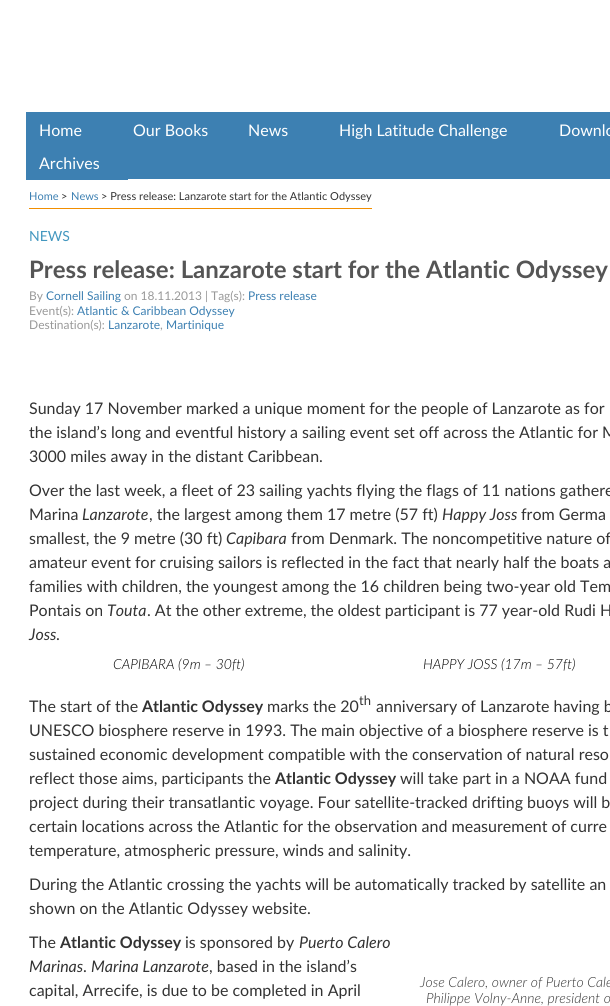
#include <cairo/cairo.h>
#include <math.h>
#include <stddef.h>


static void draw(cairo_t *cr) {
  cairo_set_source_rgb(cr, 1, 1, 1);
  cairo_paint(cr);
  cairo_set_source_rgb(cr, 61 / 255.0, 128 / 255.0, 178 / 255.0);
  cairo_rectangle(cr, 128, 147, 482, 32);
  cairo_fill(cr);
  cairo_rectangle(cr, 26, 112, 94, 33);
  cairo_fill(cr);
  cairo_rectangle(cr, 120, 112, 490, 35);
  cairo_fill(cr);
  cairo_rectangle(cr, 26, 145, 102, 35);
  cairo_fill(cr);
  cairo_set_source_rgb(cr, 241 / 255.0, 142 / 255.0, 0);
  cairo_rectangle(cr, 29, 208, 343, 1);
  cairo_fill(cr);
  cairo_select_font_face(cr, "Lato", CAIRO_FONT_SLANT_NORMAL, CAIRO_FONT_WEIGHT_NORMAL);
  cairo_set_font_size(cr, 16);
  cairo_set_source_rgb(cr, 1, 1, 1);
  cairo_move_to(cr, 39, 136);
  cairo_show_text(cr, "Home");
  cairo_move_to(cr, 133, 136);
  cairo_show_text(cr, "Our Books");
  cairo_move_to(cr, 248, 136);
  cairo_show_text(cr, "News");
  cairo_move_to(cr, 339, 136);
  cairo_show_text(cr, "High Latitude Challenge");
  cairo_move_to(cr, 559, 136);
  cairo_show_text(cr, "Downlo");
  cairo_move_to(cr, 39, 169);
  cairo_show_text(cr, "Archives");
  cairo_set_font_size(cr, 11);
  cairo_set_source_rgb(cr, 61 / 255.0, 128 / 255.0, 178 / 255.0);
  cairo_move_to(cr, 29, 200);
  cairo_show_text(cr, "Home");
  cairo_set_source_rgb(cr, 51 / 255.0, 51 / 255.0, 51 / 255.0);
  cairo_move_to(cr, 61, 200);
  cairo_show_text(cr, ">");
  cairo_set_source_rgb(cr, 61 / 255.0, 128 / 255.0, 178 / 255.0);
  cairo_move_to(cr, 71, 200);
  cairo_show_text(cr, "News");
  cairo_set_source_rgb(cr, 51 / 255.0, 51 / 255.0, 51 / 255.0);
  cairo_move_to(cr, 101, 200);
  cairo_show_text(cr, "> Press release: Lanzarote start for the Atlantic Odyssey");
  cairo_set_font_size(cr, 14);
  cairo_set_source_rgb(cr, 67 / 255.0, 151 / 255.0, 191 / 255.0);
  cairo_move_to(cr, 29, 241);
  cairo_show_text(cr, "NEWS");
  cairo_select_font_face(cr, "Lato", CAIRO_FONT_SLANT_NORMAL, CAIRO_FONT_WEIGHT_BOLD);
  cairo_set_font_size(cr, 24);
  cairo_set_source_rgb(cr, 85 / 255.0, 85 / 255.0, 85 / 255.0);
  cairo_move_to(cr, 29, 278);
  cairo_show_text(cr, "Press release: Lanzarote start for the Atlantic Odyssey");
  cairo_select_font_face(cr, "Lato", CAIRO_FONT_SLANT_NORMAL, CAIRO_FONT_WEIGHT_NORMAL);
  cairo_set_font_size(cr, 12);
  cairo_set_source_rgb(cr, 153 / 255.0, 153 / 255.0, 153 / 255.0);
  cairo_move_to(cr, 29, 300);
  cairo_show_text(cr, "By");
  cairo_set_source_rgb(cr, 61 / 255.0, 128 / 255.0, 178 / 255.0);
  cairo_move_to(cr, 46, 300);
  cairo_show_text(cr, "Cornell Sailing");
  cairo_set_source_rgb(cr, 153 / 255.0, 153 / 255.0, 153 / 255.0);
  cairo_move_to(cr, 124, 300);
  cairo_show_text(cr, "on 18.11.2013 | Tag(s):");
  cairo_set_source_rgb(cr, 61 / 255.0, 128 / 255.0, 178 / 255.0);
  cairo_move_to(cr, 248, 300);
  cairo_show_text(cr, "Press release");
  cairo_set_source_rgb(cr, 153 / 255.0, 153 / 255.0, 153 / 255.0);
  cairo_move_to(cr, 29, 315);
  cairo_show_text(cr, "Event(s):");
  cairo_set_source_rgb(cr, 61 / 255.0, 128 / 255.0, 178 / 255.0);
  cairo_move_to(cr, 77, 315);
  cairo_show_text(cr, "Atlantic & Caribbean Odyssey");
  cairo_set_source_rgb(cr, 153 / 255.0, 153 / 255.0, 153 / 255.0);
  cairo_move_to(cr, 29, 329);
  cairo_show_text(cr, "Destination(s):");
  cairo_set_source_rgb(cr, 61 / 255.0, 128 / 255.0, 178 / 255.0);
  cairo_move_to(cr, 108, 329);
  cairo_show_text(cr, "Lanzarote");
  cairo_set_source_rgb(cr, 153 / 255.0, 153 / 255.0, 153 / 255.0);
  cairo_move_to(cr, 160, 329);
  cairo_show_text(cr, ",");
  cairo_set_source_rgb(cr, 61 / 255.0, 128 / 255.0, 178 / 255.0);
  cairo_move_to(cr, 166, 329);
  cairo_show_text(cr, "Martinique");
  cairo_set_font_size(cr, 16);
  cairo_set_source_rgb(cr, 51 / 255.0, 51 / 255.0, 51 / 255.0);
  cairo_move_to(cr, 29, 414);
  cairo_show_text(cr, "Sunday 17 November marked a unique moment for the people of Lanzarote as for");
  cairo_move_to(cr, 29, 438);
  cairo_show_text(cr, "the island’s long and eventful history a sailing event set off across the Atlantic for M");
  cairo_move_to(cr, 29, 462);
  cairo_show_text(cr, "3000 miles away in the distant Caribbean.");
  cairo_move_to(cr, 29, 496);
  cairo_show_text(cr, "Over the last week, a fleet of 23 sailing yachts flying the flags of 11 nations gathere");
  cairo_move_to(cr, 29, 520);
  cairo_show_text(cr, "Marina");
  cairo_select_font_face(cr, "Lato", CAIRO_FONT_SLANT_ITALIC, CAIRO_FONT_WEIGHT_NORMAL);
  cairo_move_to(cr, 82, 520);
  cairo_show_text(cr, "Lanzarote");
  cairo_select_font_face(cr, "Lato", CAIRO_FONT_SLANT_NORMAL, CAIRO_FONT_WEIGHT_NORMAL);
  cairo_move_to(cr, 149, 520);
  cairo_show_text(cr, ", the largest among them 17 metre (57 ft)");
  cairo_select_font_face(cr, "Lato", CAIRO_FONT_SLANT_ITALIC, CAIRO_FONT_WEIGHT_NORMAL);
  cairo_move_to(cr, 442, 520);
  cairo_show_text(cr, "Happy Joss");
  cairo_select_font_face(cr, "Lato", CAIRO_FONT_SLANT_NORMAL, CAIRO_FONT_WEIGHT_NORMAL);
  cairo_move_to(cr, 521, 520);
  cairo_show_text(cr, "from Germa");
  cairo_move_to(cr, 29, 544);
  cairo_show_text(cr, "smallest, the 9 metre (30 ft)");
  cairo_select_font_face(cr, "Lato", CAIRO_FONT_SLANT_ITALIC, CAIRO_FONT_WEIGHT_NORMAL);
  cairo_move_to(cr, 226, 544);
  cairo_show_text(cr, "Capibara");
  cairo_select_font_face(cr, "Lato", CAIRO_FONT_SLANT_NORMAL, CAIRO_FONT_WEIGHT_NORMAL);
  cairo_move_to(cr, 291, 544);
  cairo_show_text(cr, "from Denmark. The noncompetitive nature of");
  cairo_move_to(cr, 29, 568);
  cairo_show_text(cr, "amateur event for cruising sailors is reflected in the fact that nearly half the boats a");
  cairo_move_to(cr, 29, 592);
  cairo_show_text(cr, "families with children, the youngest among the 16 children being two-year old Tem");
  cairo_move_to(cr, 29, 616);
  cairo_show_text(cr, "Pontais on");
  cairo_select_font_face(cr, "Lato", CAIRO_FONT_SLANT_ITALIC, CAIRO_FONT_WEIGHT_NORMAL);
  cairo_move_to(cr, 107, 616);
  cairo_show_text(cr, "Touta");
  cairo_select_font_face(cr, "Lato", CAIRO_FONT_SLANT_NORMAL, CAIRO_FONT_WEIGHT_NORMAL);
  cairo_move_to(cr, 147, 616);
  cairo_show_text(cr, ". At the other extreme, the oldest participant is 77 year-old Rudi H");
  cairo_select_font_face(cr, "Lato", CAIRO_FONT_SLANT_ITALIC, CAIRO_FONT_WEIGHT_NORMAL);
  cairo_move_to(cr, 29, 640);
  cairo_show_text(cr, "Joss.");
  cairo_select_font_face(cr, "Lato Light", CAIRO_FONT_SLANT_ITALIC, CAIRO_FONT_WEIGHT_NORMAL);
  cairo_set_font_size(cr, 14);
  cairo_set_source_rgb(cr, 0, 0, 0);
  cairo_move_to(cr, 113, 669);
  cairo_show_text(cr, "CAPIBARA (9m – 30ft)");
  cairo_move_to(cr, 423, 669);
  cairo_show_text(cr, "HAPPY JOSS (17m – 57ft)");
  cairo_select_font_face(cr, "Lato", CAIRO_FONT_SLANT_NORMAL, CAIRO_FONT_WEIGHT_NORMAL);
  cairo_set_font_size(cr, 16);
  cairo_set_source_rgb(cr, 51 / 255.0, 51 / 255.0, 51 / 255.0);
  cairo_move_to(cr, 29, 712);
  cairo_show_text(cr, "The start of the");
  cairo_select_font_face(cr, "Lato", CAIRO_FONT_SLANT_NORMAL, CAIRO_FONT_WEIGHT_BOLD);
  cairo_move_to(cr, 142, 712);
  cairo_show_text(cr, "Atlantic Odyssey");
  cairo_select_font_face(cr, "Lato", CAIRO_FONT_SLANT_NORMAL, CAIRO_FONT_WEIGHT_NORMAL);
  cairo_move_to(cr, 267, 712);
  cairo_show_text(cr, "marks the 20");
  cairo_set_font_size(cr, 13);
  cairo_move_to(cr, 359, 705);
  cairo_show_text(cr, "th");
  cairo_set_font_size(cr, 16);
  cairo_move_to(cr, 376, 712);
  cairo_show_text(cr, "anniversary of Lanzarote having b");
  cairo_move_to(cr, 29, 736);
  cairo_show_text(cr, "UNESCO biosphere reserve in 1993. The main objective of a biosphere reserve is t");
  cairo_move_to(cr, 29, 760);
  cairo_show_text(cr, "sustained economic development compatible with the conservation of natural reso");
  cairo_move_to(cr, 29, 784);
  cairo_show_text(cr, "reflect those aims, participants the");
  cairo_select_font_face(cr, "Lato", CAIRO_FONT_SLANT_NORMAL, CAIRO_FONT_WEIGHT_BOLD);
  cairo_move_to(cr, 275, 784);
  cairo_show_text(cr, "Atlantic Odyssey");
  cairo_select_font_face(cr, "Lato", CAIRO_FONT_SLANT_NORMAL, CAIRO_FONT_WEIGHT_NORMAL);
  cairo_move_to(cr, 400, 784);
  cairo_show_text(cr, "will take part in a NOAA fund");
  cairo_move_to(cr, 29, 808);
  cairo_show_text(cr, "project during their transatlantic voyage. Four satellite-tracked drifting buoys will b");
  cairo_move_to(cr, 29, 832);
  cairo_show_text(cr, "certain locations across the Atlantic for the observation and measurement of curre");
  cairo_move_to(cr, 29, 856);
  cairo_show_text(cr, "temperature, atmospheric pressure, winds and salinity.");
  cairo_move_to(cr, 29, 890);
  cairo_show_text(cr, "During the Atlantic crossing the yachts will be automatically tracked by satellite an");
  cairo_move_to(cr, 29, 914);
  cairo_show_text(cr, "shown on the Atlantic Odyssey website.");
  cairo_move_to(cr, 29, 948);
  cairo_show_text(cr, "The");
  cairo_select_font_face(cr, "Lato", CAIRO_FONT_SLANT_NORMAL, CAIRO_FONT_WEIGHT_BOLD);
  cairo_move_to(cr, 60, 948);
  cairo_show_text(cr, "Atlantic Odyssey");
  cairo_select_font_face(cr, "Lato", CAIRO_FONT_SLANT_NORMAL, CAIRO_FONT_WEIGHT_NORMAL);
  cairo_move_to(cr, 185, 948);
  cairo_show_text(cr, "is sponsored by");
  cairo_select_font_face(cr, "Lato", CAIRO_FONT_SLANT_ITALIC, CAIRO_FONT_WEIGHT_NORMAL);
  cairo_move_to(cr, 299, 948);
  cairo_show_text(cr, "Puerto Calero");
  cairo_move_to(cr, 29, 972);
  cairo_show_text(cr, "Marinas");
  cairo_select_font_face(cr, "Lato", CAIRO_FONT_SLANT_NORMAL, CAIRO_FONT_WEIGHT_NORMAL);
  cairo_move_to(cr, 83, 972);
  cairo_show_text(cr, ".");
  cairo_select_font_face(cr, "Lato", CAIRO_FONT_SLANT_ITALIC, CAIRO_FONT_WEIGHT_NORMAL);
  cairo_move_to(cr, 91, 972);
  cairo_show_text(cr, "Marina Lanzarote");
  cairo_select_font_face(cr, "Lato", CAIRO_FONT_SLANT_NORMAL, CAIRO_FONT_WEIGHT_NORMAL);
  cairo_move_to(cr, 209, 972);
  cairo_show_text(cr, ", based in the island’s");
  cairo_move_to(cr, 29, 996);
  cairo_show_text(cr, "capital, Arrecife, is due to be completed in April");
  cairo_select_font_face(cr, "Lato Light", CAIRO_FONT_SLANT_ITALIC, CAIRO_FONT_WEIGHT_NORMAL);
  cairo_set_font_size(cr, 14);
  cairo_move_to(cr, 420, 987);
  cairo_show_text(cr, "Jose Calero, owner of Puerto Cale");
  cairo_move_to(cr, 426, 1003);
  cairo_show_text(cr, "Philippe Volny-Anne, president o");
}

int main(void) {
  cairo_surface_t *surface = cairo_image_surface_create(CAIRO_FORMAT_RGB24, 610, 1006);
  cairo_t *cr = cairo_create(surface);
  cairo_font_options_t *options = cairo_font_options_create();
  cairo_font_options_set_hint_metrics(options, CAIRO_HINT_METRICS_OFF);
  cairo_font_options_set_hint_style(options, CAIRO_HINT_STYLE_NONE);
  cairo_set_font_options(cr, options);
  cairo_set_miter_limit(cr, 4);
  draw(cr);
  cairo_surface_write_to_png(surface, "out.png");
  cairo_font_options_destroy(options);
  cairo_destroy(cr);
  cairo_surface_destroy(surface);
  return 0;
}
